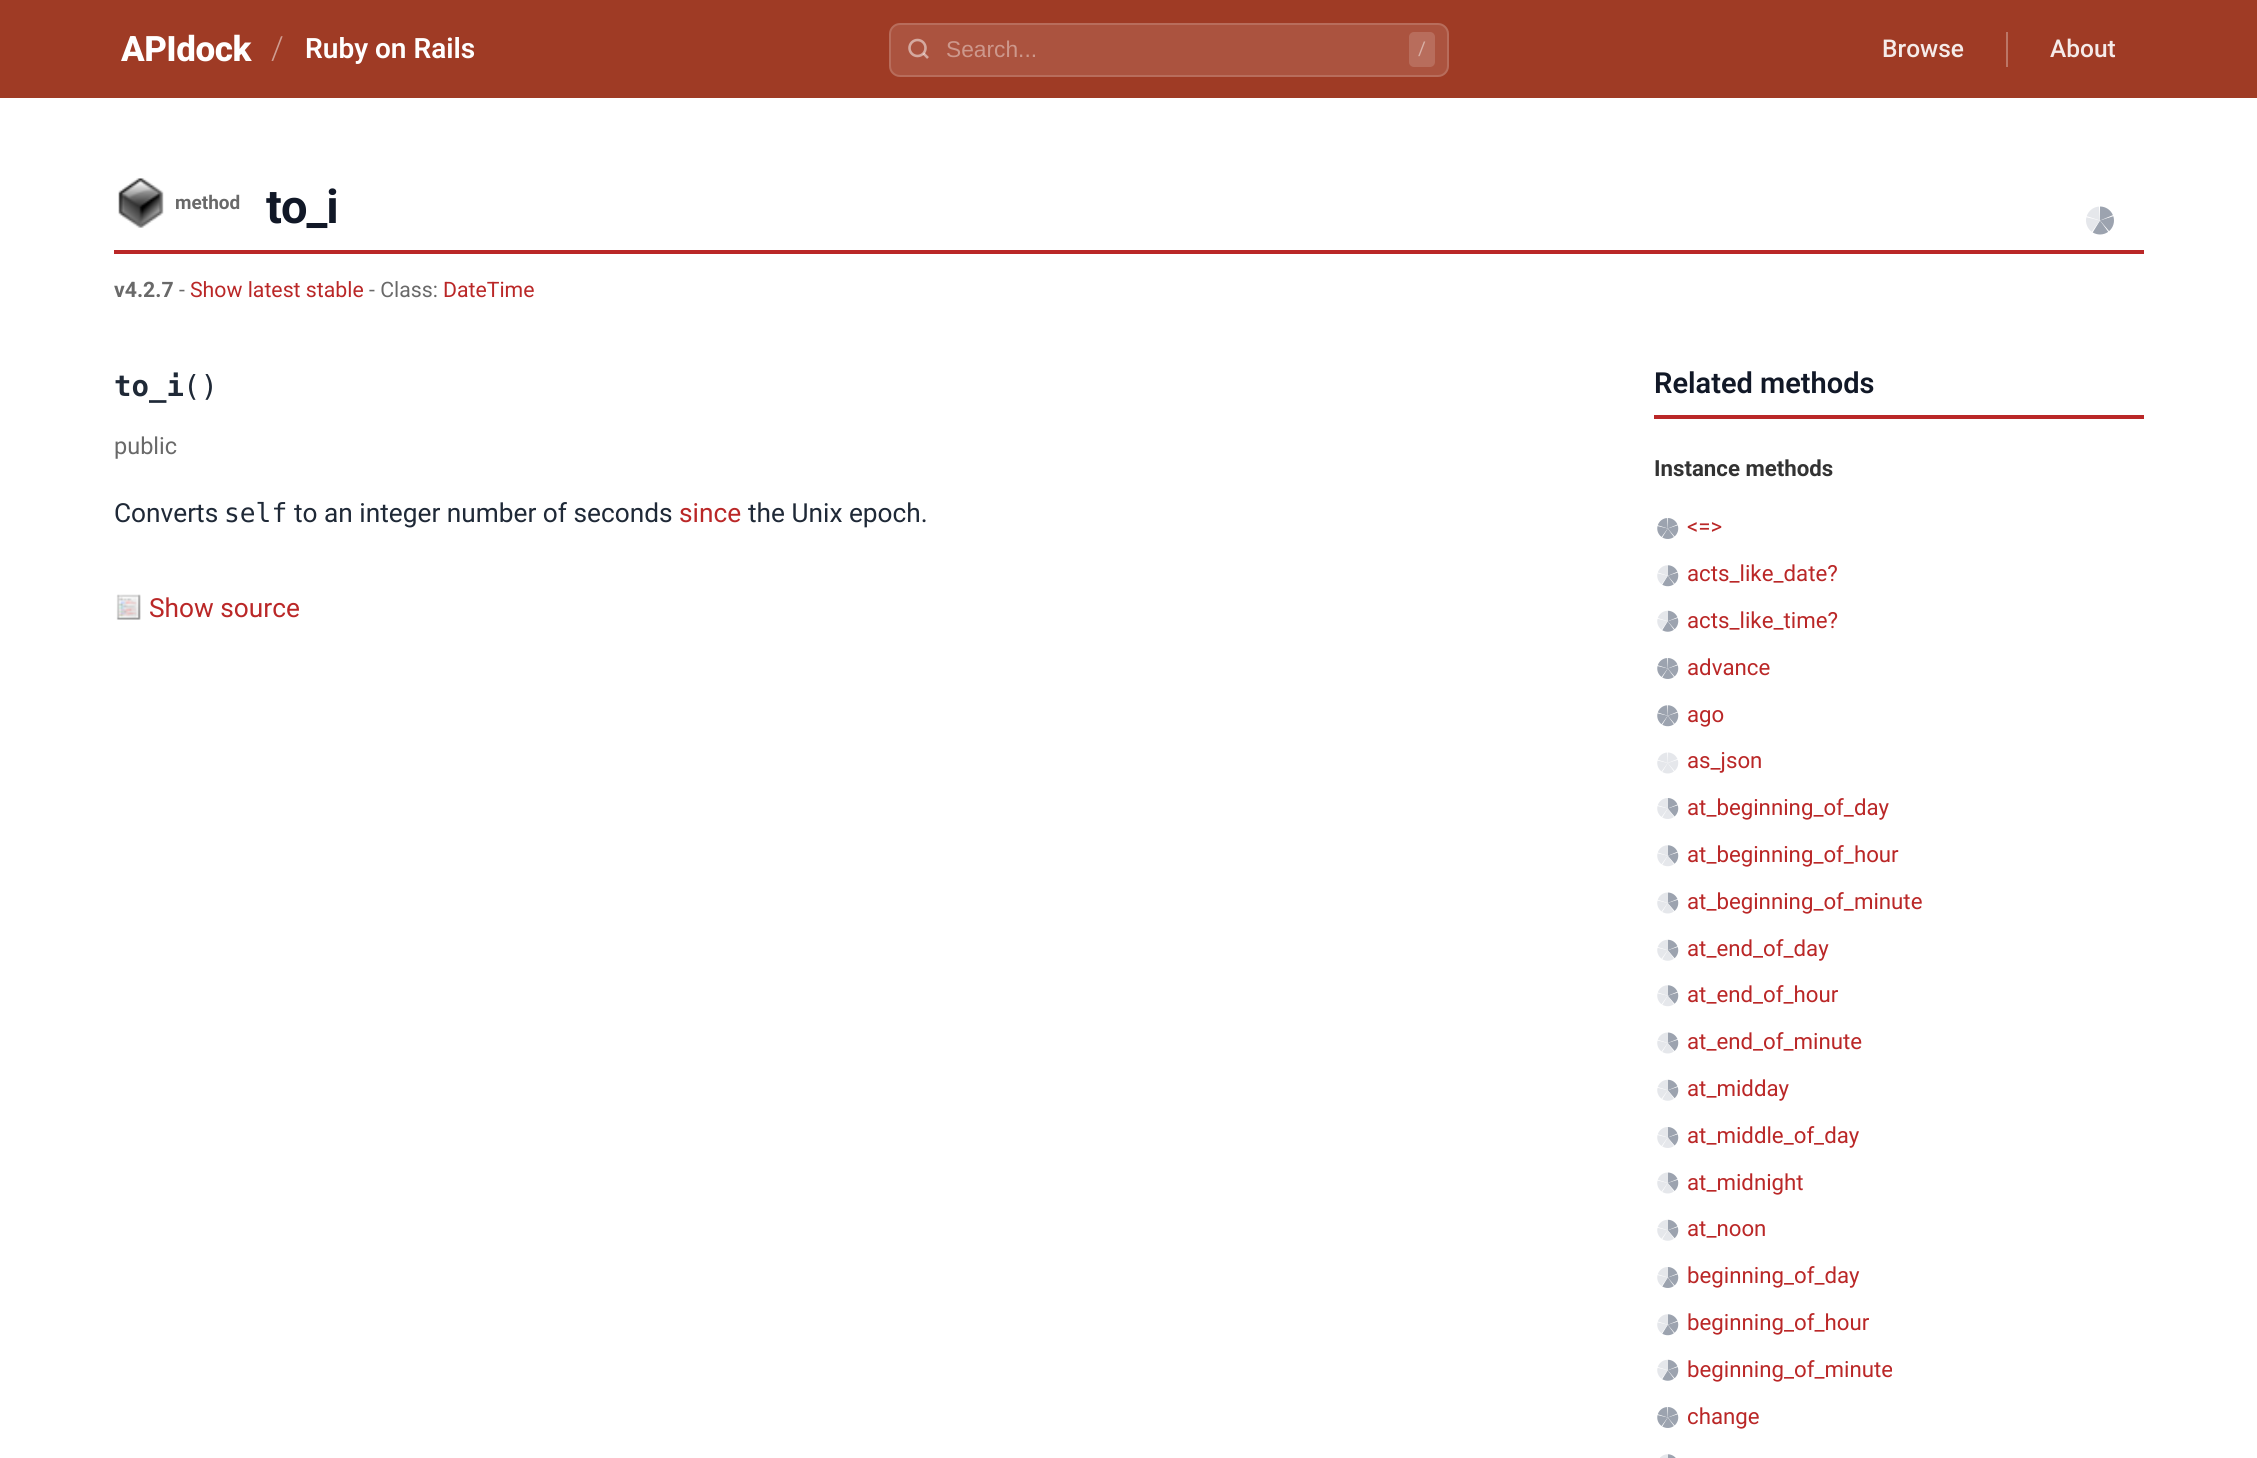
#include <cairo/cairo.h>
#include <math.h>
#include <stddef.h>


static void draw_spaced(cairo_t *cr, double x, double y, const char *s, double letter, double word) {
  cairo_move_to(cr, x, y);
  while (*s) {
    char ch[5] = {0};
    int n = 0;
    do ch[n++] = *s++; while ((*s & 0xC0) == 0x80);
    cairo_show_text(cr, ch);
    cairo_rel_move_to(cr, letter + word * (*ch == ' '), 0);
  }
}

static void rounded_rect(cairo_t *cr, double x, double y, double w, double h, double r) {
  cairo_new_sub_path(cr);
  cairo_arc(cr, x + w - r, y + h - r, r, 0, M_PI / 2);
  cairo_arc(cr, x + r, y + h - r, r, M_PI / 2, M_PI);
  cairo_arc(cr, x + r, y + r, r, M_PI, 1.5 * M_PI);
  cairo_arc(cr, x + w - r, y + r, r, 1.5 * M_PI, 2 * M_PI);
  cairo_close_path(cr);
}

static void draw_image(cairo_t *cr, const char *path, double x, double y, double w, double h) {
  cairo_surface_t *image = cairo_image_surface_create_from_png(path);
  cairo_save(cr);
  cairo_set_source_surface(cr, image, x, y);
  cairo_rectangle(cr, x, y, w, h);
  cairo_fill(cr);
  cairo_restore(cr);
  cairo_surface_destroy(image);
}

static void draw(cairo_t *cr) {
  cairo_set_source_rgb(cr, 1, 1, 1);
  cairo_paint(cr);
  cairo_set_source_rgb(cr, 159 / 255.0, 59 / 255.0, 37 / 255.0);
  cairo_rectangle(cr, 0, 0, 2257, 98);
  cairo_fill(cr);
  cairo_set_source_rgb(cr, 171 / 255.0, 83 / 255.0, 63 / 255.0);
  rounded_rect(cr, 889, 23, 560, 54, 11);
  cairo_fill(cr);
  rounded_rect(cr, 890, 24, 558, 52, 10);
  cairo_set_source_rgba(cr, 1, 1, 1, 0.15);
  cairo_stroke(cr);
  cairo_arc(cr, 917.5, 48, 8, 0, 2 * M_PI);
  cairo_set_source_rgb(cr, 213 / 255.0, 169 / 255.0, 159 / 255.0);
  cairo_set_line_width(cr, 2.6);
  cairo_stroke(cr);
  cairo_new_path(cr);
  cairo_move_to(cr, 928, 58);
  cairo_line_to(cr, 923.5, 53.5);
  cairo_set_source_rgba(cr, 1, 1, 1, 0.5);
  cairo_stroke(cr);
  cairo_set_source_rgb(cr, 184 / 255.0, 109 / 255.0, 92 / 255.0);
  rounded_rect(cr, 1409, 32, 26, 35, 5);
  cairo_fill(cr);
  cairo_set_source_rgb(cr, 188 / 255.0, 118 / 255.0, 102 / 255.0);
  cairo_rectangle(cr, 2006, 32, 2, 35);
  cairo_fill(cr);
  cairo_set_source_rgb(cr, 186 / 255.0, 39 / 255.0, 39 / 255.0);
  cairo_rectangle(cr, 114, 250, 2030, 4);
  cairo_fill(cr);
  draw_image(cr, "images/1.png", 118, 178, 46, 50);
  draw_image(cr, "images/2.png", 2086, 206, 28, 29);
  draw_image(cr, "images/3.png", 116, 594, 25, 26);
  cairo_rectangle(cr, 1654, 415, 490, 4);
  cairo_fill(cr);
  draw_image(cr, "images/4.png", 1657, 518, 22, 21);
  draw_image(cr, "images/5.png", 1657, 565, 22, 22);
  draw_image(cr, "images/6.png", 1657, 610, 22, 22);
  draw_image(cr, "images/4.png", 1657, 658, 22, 21);
  draw_image(cr, "images/7.png", 1657, 705, 22, 22);
  draw_image(cr, "images/8.png", 1657, 752, 22, 22);
  draw_image(cr, "images/9.png", 1657, 798, 22, 21);
  draw_image(cr, "images/10.png", 1657, 845, 22, 22);
  draw_image(cr, "images/11.png", 1657, 892, 22, 22);
  draw_image(cr, "images/12.png", 1657, 939, 22, 22);
  draw_image(cr, "images/10.png", 1657, 985, 22, 22);
  draw_image(cr, "images/11.png", 1657, 1032, 22, 22);
  draw_image(cr, "images/12.png", 1657, 1079, 22, 22);
  draw_image(cr, "images/9.png", 1657, 1127, 22, 21);
  draw_image(cr, "images/11.png", 1657, 1172, 22, 22);
  draw_image(cr, "images/12.png", 1657, 1219, 22, 22);
  draw_image(cr, "images/13.png", 1657, 1267, 22, 21);
  draw_image(cr, "images/5.png", 1657, 1314, 22, 22);
  draw_image(cr, "images/6.png", 1657, 1359, 22, 22);
  draw_image(cr, "images/4.png", 1657, 1407, 22, 21);
  draw_image(cr, "images/14.png", 1660, 1454, 16, 4);
  cairo_select_font_face(cr, "Roboto ExtraBold", CAIRO_FONT_SLANT_NORMAL, CAIRO_FONT_WEIGHT_NORMAL);
  cairo_set_font_size(cr, 35);
  cairo_set_source_rgb(cr, 1, 1, 1);
  draw_spaced(cr, 121, 61, "APIdock", -0.5, 0);
  cairo_select_font_face(cr, "Roboto Light", CAIRO_FONT_SLANT_NORMAL, CAIRO_FONT_WEIGHT_NORMAL);
  cairo_set_font_size(cr, 32);
  cairo_set_source_rgb(cr, 207 / 255.0, 157 / 255.0, 146 / 255.0);
  cairo_move_to(cr, 271, 59);
  cairo_show_text(cr, "/");
  cairo_select_font_face(cr, "Roboto SemiBold", CAIRO_FONT_SLANT_NORMAL, CAIRO_FONT_WEIGHT_NORMAL);
  cairo_set_font_size(cr, 28);
  cairo_set_source_rgb(cr, 1, 1, 1);
  cairo_move_to(cr, 305, 58);
  cairo_show_text(cr, "Ruby on Rails");
  cairo_select_font_face(cr, "Liberation Sans", CAIRO_FONT_SLANT_NORMAL, CAIRO_FONT_WEIGHT_NORMAL);
  cairo_set_font_size(cr, 22.75);
  cairo_set_source_rgb(cr, 205 / 255.0, 152 / 255.0, 140 / 255.0);
  cairo_move_to(cr, 946, 57);
  cairo_show_text(cr, "Search...");
  cairo_select_font_face(cr, "Roboto", CAIRO_FONT_SLANT_NORMAL, CAIRO_FONT_WEIGHT_NORMAL);
  cairo_set_font_size(cr, 19);
  cairo_set_source_rgb(cr, 216 / 255.0, 175 / 255.0, 165 / 255.0);
  cairo_move_to(cr, 1418, 55);
  cairo_show_text(cr, "/");
  cairo_select_font_face(cr, "Roboto Medium", CAIRO_FONT_SLANT_NORMAL, CAIRO_FONT_WEIGHT_NORMAL);
  cairo_set_font_size(cr, 24.5);
  cairo_set_source_rgb(cr, 245 / 255.0, 235 / 255.0, 233 / 255.0);
  cairo_move_to(cr, 1882, 57);
  cairo_show_text(cr, "Browse");
  cairo_move_to(cr, 2050, 57);
  cairo_show_text(cr, "About");
  cairo_select_font_face(cr, "Roboto", CAIRO_FONT_SLANT_NORMAL, CAIRO_FONT_WEIGHT_BOLD);
  cairo_set_font_size(cr, 19);
  cairo_set_source_rgb(cr, 105 / 255.0, 105 / 255.0, 105 / 255.0);
  cairo_move_to(cr, 175, 209);
  cairo_show_text(cr, "method");
  cairo_set_font_size(cr, 47);
  cairo_set_source_rgb(cr, 17 / 255.0, 24 / 255.0, 39 / 255.0);
  draw_spaced(cr, 266, 223, "to_i", -1, 0);
  cairo_set_font_size(cr, 21.25);
  cairo_set_source_rgb(cr, 105 / 255.0, 105 / 255.0, 105 / 255.0);
  cairo_move_to(cr, 114, 297);
  cairo_show_text(cr, "v4.2.7");
  cairo_select_font_face(cr, "Roboto", CAIRO_FONT_SLANT_NORMAL, CAIRO_FONT_WEIGHT_NORMAL);
  cairo_move_to(cr, 179, 297);
  cairo_show_text(cr, "-");
  cairo_set_source_rgb(cr, 186 / 255.0, 39 / 255.0, 39 / 255.0);
  cairo_move_to(cr, 190, 297);
  cairo_show_text(cr, "Show latest stable");
  cairo_set_source_rgb(cr, 105 / 255.0, 105 / 255.0, 105 / 255.0);
  cairo_move_to(cr, 369, 297);
  cairo_show_text(cr, "- Class:");
  cairo_set_source_rgb(cr, 186 / 255.0, 39 / 255.0, 39 / 255.0);
  cairo_move_to(cr, 443, 297);
  cairo_show_text(cr, "DateTime");
  cairo_select_font_face(cr, "DejaVu Sans Mono", CAIRO_FONT_SLANT_NORMAL, CAIRO_FONT_WEIGHT_BOLD);
  cairo_set_font_size(cr, 29);
  cairo_set_source_rgb(cr, 31 / 255.0, 41 / 255.0, 55 / 255.0);
  cairo_move_to(cr, 114, 396);
  cairo_show_text(cr, "to_i");
  cairo_select_font_face(cr, "DejaVu Sans Mono", CAIRO_FONT_SLANT_NORMAL, CAIRO_FONT_WEIGHT_NORMAL);
  cairo_move_to(cr, 183, 396);
  cairo_show_text(cr, "()");
  cairo_select_font_face(cr, "Roboto", CAIRO_FONT_SLANT_NORMAL, CAIRO_FONT_WEIGHT_NORMAL);
  cairo_set_font_size(cr, 23.5);
  cairo_set_source_rgb(cr, 105 / 255.0, 105 / 255.0, 105 / 255.0);
  cairo_move_to(cr, 114, 454);
  cairo_show_text(cr, "public");
  cairo_set_font_size(cr, 26.25);
  cairo_set_source_rgb(cr, 31 / 255.0, 41 / 255.0, 55 / 255.0);
  cairo_move_to(cr, 114, 522);
  cairo_show_text(cr, "Converts");
  cairo_select_font_face(cr, "DejaVu Sans Mono", CAIRO_FONT_SLANT_NORMAL, CAIRO_FONT_WEIGHT_NORMAL);
  cairo_move_to(cr, 224, 522);
  cairo_show_text(cr, "self");
  cairo_select_font_face(cr, "Roboto", CAIRO_FONT_SLANT_NORMAL, CAIRO_FONT_WEIGHT_NORMAL);
  cairo_move_to(cr, 294, 522);
  cairo_show_text(cr, "to an integer number of seconds");
  cairo_set_source_rgb(cr, 186 / 255.0, 39 / 255.0, 39 / 255.0);
  cairo_move_to(cr, 679, 522);
  cairo_show_text(cr, "since");
  cairo_set_source_rgb(cr, 31 / 255.0, 41 / 255.0, 55 / 255.0);
  cairo_move_to(cr, 748, 522);
  cairo_show_text(cr, "the Unix epoch.");
  cairo_set_source_rgb(cr, 186 / 255.0, 39 / 255.0, 39 / 255.0);
  cairo_move_to(cr, 149, 617);
  cairo_show_text(cr, "Show source");
  cairo_select_font_face(cr, "Roboto SemiBold", CAIRO_FONT_SLANT_NORMAL, CAIRO_FONT_WEIGHT_NORMAL);
  cairo_set_font_size(cr, 29);
  cairo_set_source_rgb(cr, 17 / 255.0, 24 / 255.0, 39 / 255.0);
  cairo_move_to(cr, 1654, 393);
  cairo_show_text(cr, "Related methods");
  cairo_select_font_face(cr, "Roboto", CAIRO_FONT_SLANT_NORMAL, CAIRO_FONT_WEIGHT_BOLD);
  cairo_set_font_size(cr, 22.25);
  cairo_set_source_rgb(cr, 51 / 255.0, 51 / 255.0, 51 / 255.0);
  cairo_move_to(cr, 1654, 476);
  cairo_show_text(cr, "Instance methods");
  cairo_select_font_face(cr, "Roboto", CAIRO_FONT_SLANT_NORMAL, CAIRO_FONT_WEIGHT_NORMAL);
  cairo_set_source_rgb(cr, 186 / 255.0, 39 / 255.0, 39 / 255.0);
  cairo_move_to(cr, 1687, 534);
  cairo_show_text(cr, "<=>");
  cairo_move_to(cr, 1687, 581);
  cairo_show_text(cr, "acts_like_date?");
  cairo_move_to(cr, 1687, 628);
  cairo_show_text(cr, "acts_like_time?");
  cairo_move_to(cr, 1687, 675);
  cairo_show_text(cr, "advance");
  cairo_move_to(cr, 1687, 722);
  cairo_show_text(cr, "ago");
  cairo_move_to(cr, 1687, 768);
  cairo_show_text(cr, "as_json");
  cairo_move_to(cr, 1687, 815);
  cairo_show_text(cr, "at_beginning_of_day");
  cairo_move_to(cr, 1687, 862);
  cairo_show_text(cr, "at_beginning_of_hour");
  cairo_move_to(cr, 1687, 909);
  cairo_show_text(cr, "at_beginning_of_minute");
  cairo_move_to(cr, 1687, 956);
  cairo_show_text(cr, "at_end_of_day");
  cairo_move_to(cr, 1687, 1002);
  cairo_show_text(cr, "at_end_of_hour");
  cairo_move_to(cr, 1687, 1049);
  cairo_show_text(cr, "at_end_of_minute");
  cairo_move_to(cr, 1687, 1096);
  cairo_show_text(cr, "at_midday");
  cairo_move_to(cr, 1687, 1143);
  cairo_show_text(cr, "at_middle_of_day");
  cairo_move_to(cr, 1687, 1190);
  cairo_show_text(cr, "at_midnight");
  cairo_move_to(cr, 1687, 1236);
  cairo_show_text(cr, "at_noon");
  cairo_move_to(cr, 1687, 1283);
  cairo_show_text(cr, "beginning_of_day");
  cairo_move_to(cr, 1687, 1330);
  cairo_show_text(cr, "beginning_of_hour");
  cairo_move_to(cr, 1687, 1377);
  cairo_show_text(cr, "beginning_of_minute");
  cairo_move_to(cr, 1687, 1424);
  cairo_show_text(cr, "change");
}

int main(void) {
  cairo_surface_t *surface = cairo_image_surface_create(CAIRO_FORMAT_RGB24, 2257, 1458);
  cairo_t *cr = cairo_create(surface);
  cairo_font_options_t *options = cairo_font_options_create();
  cairo_font_options_set_hint_metrics(options, CAIRO_HINT_METRICS_OFF);
  cairo_font_options_set_hint_style(options, CAIRO_HINT_STYLE_NONE);
  cairo_set_font_options(cr, options);
  cairo_set_miter_limit(cr, 4);
  draw(cr);
  cairo_surface_write_to_png(surface, "out.png");
  cairo_font_options_destroy(options);
  cairo_destroy(cr);
  cairo_surface_destroy(surface);
  return 0;
}
